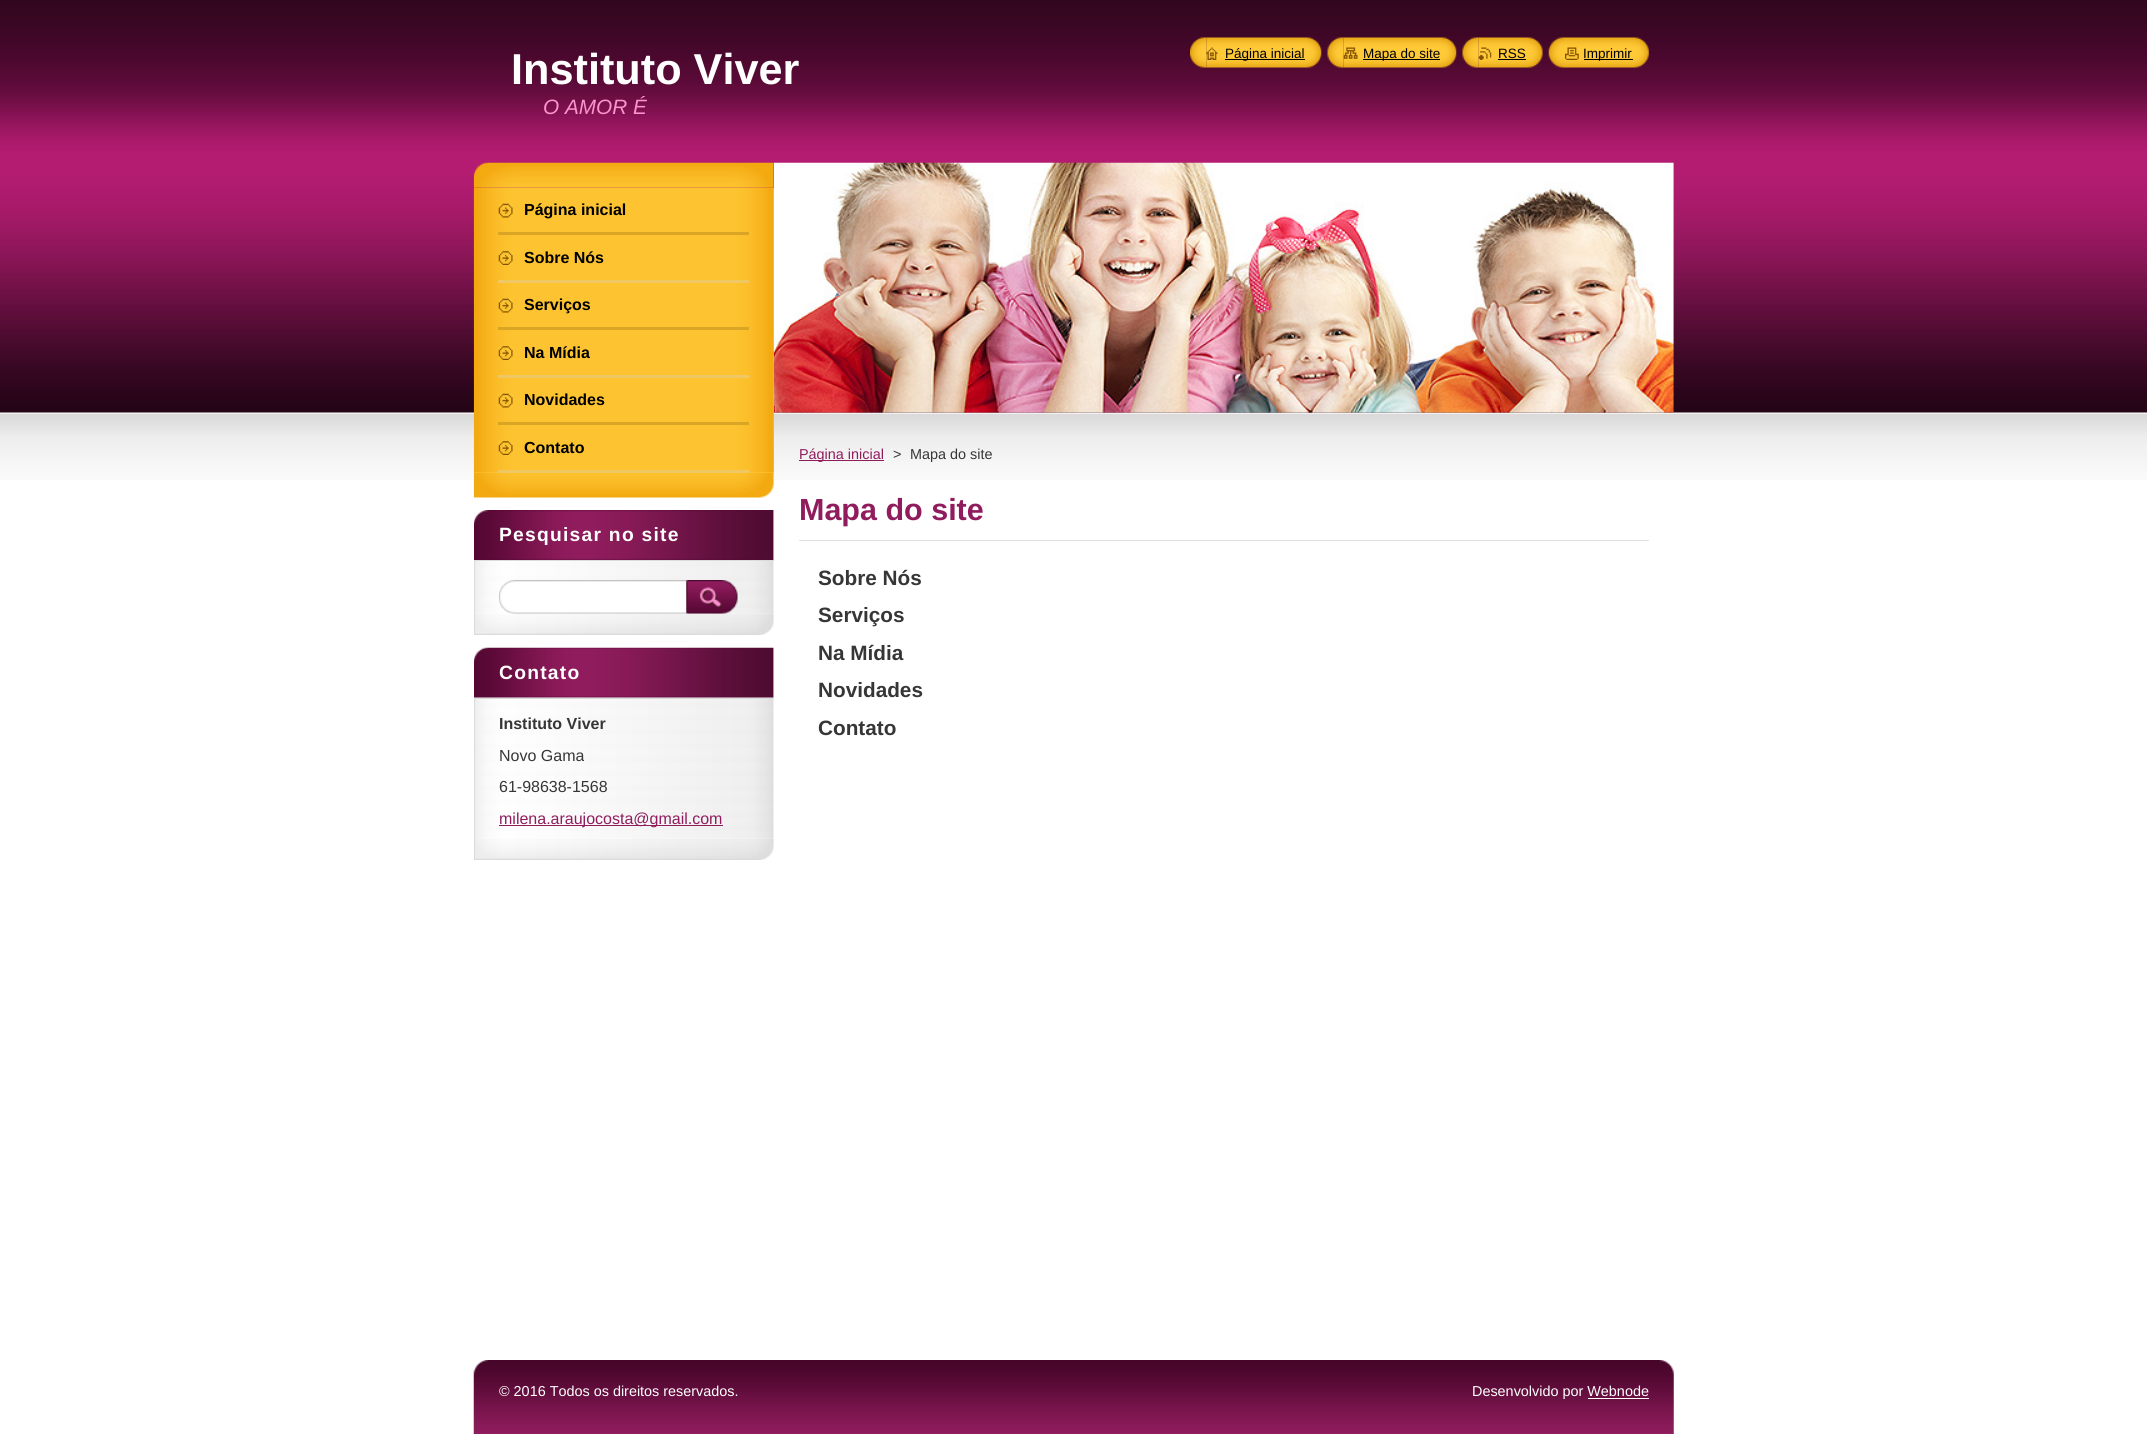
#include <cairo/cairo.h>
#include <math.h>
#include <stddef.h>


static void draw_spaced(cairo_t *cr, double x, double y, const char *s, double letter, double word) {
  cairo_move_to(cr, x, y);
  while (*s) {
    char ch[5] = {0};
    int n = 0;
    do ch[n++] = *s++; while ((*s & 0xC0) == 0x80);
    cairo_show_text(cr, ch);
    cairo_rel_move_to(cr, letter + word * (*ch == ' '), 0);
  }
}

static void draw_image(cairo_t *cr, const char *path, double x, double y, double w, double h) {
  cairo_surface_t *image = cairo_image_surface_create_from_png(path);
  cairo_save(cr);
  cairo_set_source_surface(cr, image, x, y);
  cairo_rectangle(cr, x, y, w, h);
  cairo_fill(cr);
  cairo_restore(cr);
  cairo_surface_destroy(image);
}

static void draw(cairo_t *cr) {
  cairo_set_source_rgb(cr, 1, 1, 1);
  cairo_paint(cr);
  draw_image(cr, "images/1.png", 0, 0, 2147, 480);
  draw_image(cr, "images/2.png", 1190, 37, 17, 31);
  draw_image(cr, "images/3.png", 1206, 37, 116, 31);
  draw_image(cr, "images/4.png", 1206, 47, 12, 13);
  cairo_set_source_rgb(cr, 0, 0, 0);
  cairo_rectangle(cr, 1225, 59, 80, 1);
  cairo_fill(cr);
  draw_image(cr, "images/5.png", 1327, 37, 17, 31);
  draw_image(cr, "images/6.png", 1343, 37, 114, 31);
  draw_image(cr, "images/7.png", 1343, 47, 15, 12);
  cairo_rectangle(cr, 1363, 59, 77, 1);
  cairo_fill(cr);
  draw_image(cr, "images/8.png", 1462, 37, 17, 31);
  draw_image(cr, "images/9.png", 1478, 37, 65, 31);
  draw_image(cr, "images/10.png", 1478, 47, 14, 13);
  cairo_rectangle(cr, 1498, 59, 28, 1);
  cairo_fill(cr);
  draw_image(cr, "images/11.png", 1548, 37, 17, 31);
  draw_image(cr, "images/12.png", 1565, 37, 84, 31);
  draw_image(cr, "images/13.png", 1565, 47, 14, 13);
  cairo_rectangle(cr, 1584, 59, 49, 1);
  cairo_fill(cr);
  draw_image(cr, "images/14.png", 473, 162, 301, 26);
  draw_image(cr, "images/15.png", 473, 472, 301, 26);
  cairo_set_source_rgb(cr, 1, 201 / 255.0, 55 / 255.0);
  cairo_rectangle(cr, 474, 188, 300, 285);
  cairo_fill(cr);
  draw_image(cr, "images/16.png", 473, 187, 301, 286);
  cairo_set_source_rgb(cr, 218 / 255.0, 165 / 255.0, 36 / 255.0);
  cairo_rectangle(cr, 498, 232, 251, 3);
  cairo_fill(cr);
  draw_image(cr, "images/17.png", 498, 203, 15, 15);
  cairo_set_source_rgb(cr, 239 / 255.0, 200 / 255.0, 99 / 255.0);
  cairo_rectangle(cr, 498, 280, 251, 3);
  cairo_fill(cr);
  draw_image(cr, "images/18.png", 498, 251, 15, 14);
  cairo_set_source_rgb(cr, 218 / 255.0, 165 / 255.0, 36 / 255.0);
  cairo_rectangle(cr, 498, 327, 251, 3);
  cairo_fill(cr);
  draw_image(cr, "images/17.png", 498, 298, 15, 15);
  cairo_set_source_rgb(cr, 239 / 255.0, 200 / 255.0, 99 / 255.0);
  cairo_rectangle(cr, 498, 375, 251, 3);
  cairo_fill(cr);
  draw_image(cr, "images/18.png", 498, 346, 15, 14);
  cairo_set_source_rgb(cr, 218 / 255.0, 165 / 255.0, 36 / 255.0);
  cairo_rectangle(cr, 498, 422, 251, 3);
  cairo_fill(cr);
  draw_image(cr, "images/17.png", 498, 393, 15, 15);
  cairo_set_source_rgb(cr, 239 / 255.0, 200 / 255.0, 99 / 255.0);
  cairo_rectangle(cr, 498, 470, 251, 3);
  cairo_fill(cr);
  draw_image(cr, "images/18.png", 498, 441, 15, 14);
  draw_image(cr, "images/19.png", 474, 613, 300, 22);
  draw_image(cr, "images/20.png", 474, 510, 300, 50);
  draw_image(cr, "images/21.png", 474, 561, 300, 53);
  cairo_set_source_rgb(cr, 219 / 255.0, 219 / 255.0, 219 / 255.0);
  cairo_rectangle(cr, 474, 560, 300, 1);
  cairo_fill(cr);
  draw_image(cr, "images/22.png", 499, 580, 189, 34);
  draw_image(cr, "images/23.png", 686, 580, 52, 34);
  draw_image(cr, "images/19.png", 474, 838, 300, 22);
  draw_image(cr, "images/25.png", 474, 697, 300, 142);
  draw_image(cr, "images/24.png", 474, 647, 300, 51);
  cairo_rectangle(cr, 474, 698, 300, 1);
  cairo_fill(cr);
  cairo_set_source_rgb(cr, 144 / 255.0, 28 / 255.0, 93 / 255.0);
  cairo_rectangle(cr, 499, 825, 224, 1);
  cairo_fill(cr);
  draw_image(cr, "images/26.png", 773, 162, 901, 251);
  cairo_rectangle(cr, 799, 460, 85, 1);
  cairo_fill(cr);
  cairo_set_source_rgb(cr, 225 / 255.0, 225 / 255.0, 225 / 255.0);
  cairo_rectangle(cr, 799, 540, 850, 1);
  cairo_fill(cr);
  draw_image(cr, "images/27.png", 473, 1360, 1201, 74);
  cairo_set_source_rgb(cr, 1, 1, 1);
  cairo_rectangle(cr, 1588, 1398, 61, 1);
  cairo_fill(cr);
  cairo_select_font_face(cr, "Liberation Sans", CAIRO_FONT_SLANT_NORMAL, CAIRO_FONT_WEIGHT_BOLD);
  cairo_set_font_size(cr, 43.25);
  cairo_move_to(cr, 511, 84);
  cairo_show_text(cr, "Instituto Viver");
  cairo_select_font_face(cr, "Liberation Sans", CAIRO_FONT_SLANT_ITALIC, CAIRO_FONT_WEIGHT_NORMAL);
  cairo_set_font_size(cr, 20.75);
  cairo_set_source_rgb(cr, 252 / 255.0, 147 / 255.0, 206 / 255.0);
  cairo_move_to(cr, 543, 114);
  cairo_show_text(cr, "O AMOR É");
  cairo_select_font_face(cr, "Liberation Sans", CAIRO_FONT_SLANT_NORMAL, CAIRO_FONT_WEIGHT_NORMAL);
  cairo_set_font_size(cr, 13.5);
  cairo_set_source_rgb(cr, 0, 0, 0);
  cairo_move_to(cr, 1225, 58);
  cairo_show_text(cr, "Página inicial");
  cairo_move_to(cr, 1363, 58);
  cairo_show_text(cr, "Mapa do site");
  cairo_move_to(cr, 1498, 58);
  cairo_show_text(cr, "RSS");
  cairo_move_to(cr, 1583, 58);
  cairo_show_text(cr, "Imprimir");
  cairo_select_font_face(cr, "Liberation Sans", CAIRO_FONT_SLANT_NORMAL, CAIRO_FONT_WEIGHT_BOLD);
  cairo_set_font_size(cr, 16);
  cairo_move_to(cr, 524, 215);
  cairo_show_text(cr, "Página inicial");
  cairo_move_to(cr, 524, 263);
  cairo_show_text(cr, "Sobre Nós");
  cairo_move_to(cr, 524, 310);
  cairo_show_text(cr, "Serviços");
  cairo_move_to(cr, 524, 358);
  cairo_show_text(cr, "Na Mídia");
  cairo_move_to(cr, 524, 405);
  cairo_show_text(cr, "Novidades");
  cairo_move_to(cr, 524, 453);
  cairo_show_text(cr, "Contato");
  cairo_set_font_size(cr, 19.25);
  cairo_set_source_rgb(cr, 1, 1, 1);
  draw_spaced(cr, 499, 541, "Pesquisar no site", 1.25, 0);
  draw_spaced(cr, 499, 679, "Contato", 1.25, 0);
  cairo_set_font_size(cr, 16);
  cairo_set_source_rgb(cr, 54 / 255.0, 54 / 255.0, 54 / 255.0);
  cairo_move_to(cr, 499, 729);
  cairo_show_text(cr, "Instituto Viver");
  cairo_select_font_face(cr, "Liberation Sans", CAIRO_FONT_SLANT_NORMAL, CAIRO_FONT_WEIGHT_NORMAL);
  cairo_move_to(cr, 499, 761);
  cairo_show_text(cr, "Novo Gama");
  cairo_move_to(cr, 499, 792);
  cairo_show_text(cr, "61-98638-1568");
  cairo_set_source_rgb(cr, 144 / 255.0, 28 / 255.0, 93 / 255.0);
  cairo_move_to(cr, 499, 824);
  cairo_show_text(cr, "milena.araujocosta@gmail.com");
  cairo_set_font_size(cr, 14.4);
  cairo_move_to(cr, 799, 459);
  cairo_show_text(cr, "Página inicial");
  cairo_set_source_rgb(cr, 54 / 255.0, 54 / 255.0, 54 / 255.0);
  cairo_move_to(cr, 893, 459);
  cairo_show_text(cr, ">");
  cairo_move_to(cr, 910, 459);
  cairo_show_text(cr, "Mapa do site");
  cairo_select_font_face(cr, "Liberation Sans", CAIRO_FONT_SLANT_NORMAL, CAIRO_FONT_WEIGHT_BOLD);
  cairo_set_font_size(cr, 30.5);
  cairo_set_source_rgb(cr, 144 / 255.0, 28 / 255.0, 93 / 255.0);
  cairo_move_to(cr, 799, 520);
  cairo_show_text(cr, "Mapa do site");
  cairo_set_font_size(cr, 20.75);
  cairo_set_source_rgb(cr, 54 / 255.0, 54 / 255.0, 54 / 255.0);
  cairo_move_to(cr, 818, 585);
  cairo_show_text(cr, "Sobre Nós");
  cairo_move_to(cr, 818, 622);
  cairo_show_text(cr, "Serviços");
  cairo_move_to(cr, 818, 660);
  cairo_show_text(cr, "Na Mídia");
  cairo_move_to(cr, 818, 697);
  cairo_show_text(cr, "Novidades");
  cairo_move_to(cr, 818, 735);
  cairo_show_text(cr, "Contato");
  cairo_select_font_face(cr, "Liberation Sans", CAIRO_FONT_SLANT_NORMAL, CAIRO_FONT_WEIGHT_NORMAL);
  cairo_set_font_size(cr, 14.4);
  cairo_set_source_rgb(cr, 1, 1, 1);
  cairo_move_to(cr, 499, 1396);
  cairo_show_text(cr, "© 2016 Todos os direitos reservados.");
  cairo_move_to(cr, 1472, 1396);
  cairo_show_text(cr, "Desenvolvido por Webnode");
}

int main(void) {
  cairo_surface_t *surface = cairo_image_surface_create(CAIRO_FORMAT_RGB24, 2147, 1434);
  cairo_t *cr = cairo_create(surface);
  cairo_font_options_t *options = cairo_font_options_create();
  cairo_font_options_set_hint_metrics(options, CAIRO_HINT_METRICS_OFF);
  cairo_font_options_set_hint_style(options, CAIRO_HINT_STYLE_NONE);
  cairo_set_font_options(cr, options);
  cairo_set_miter_limit(cr, 4);
  draw(cr);
  cairo_surface_write_to_png(surface, "out.png");
  cairo_font_options_destroy(options);
  cairo_destroy(cr);
  cairo_surface_destroy(surface);
  return 0;
}
